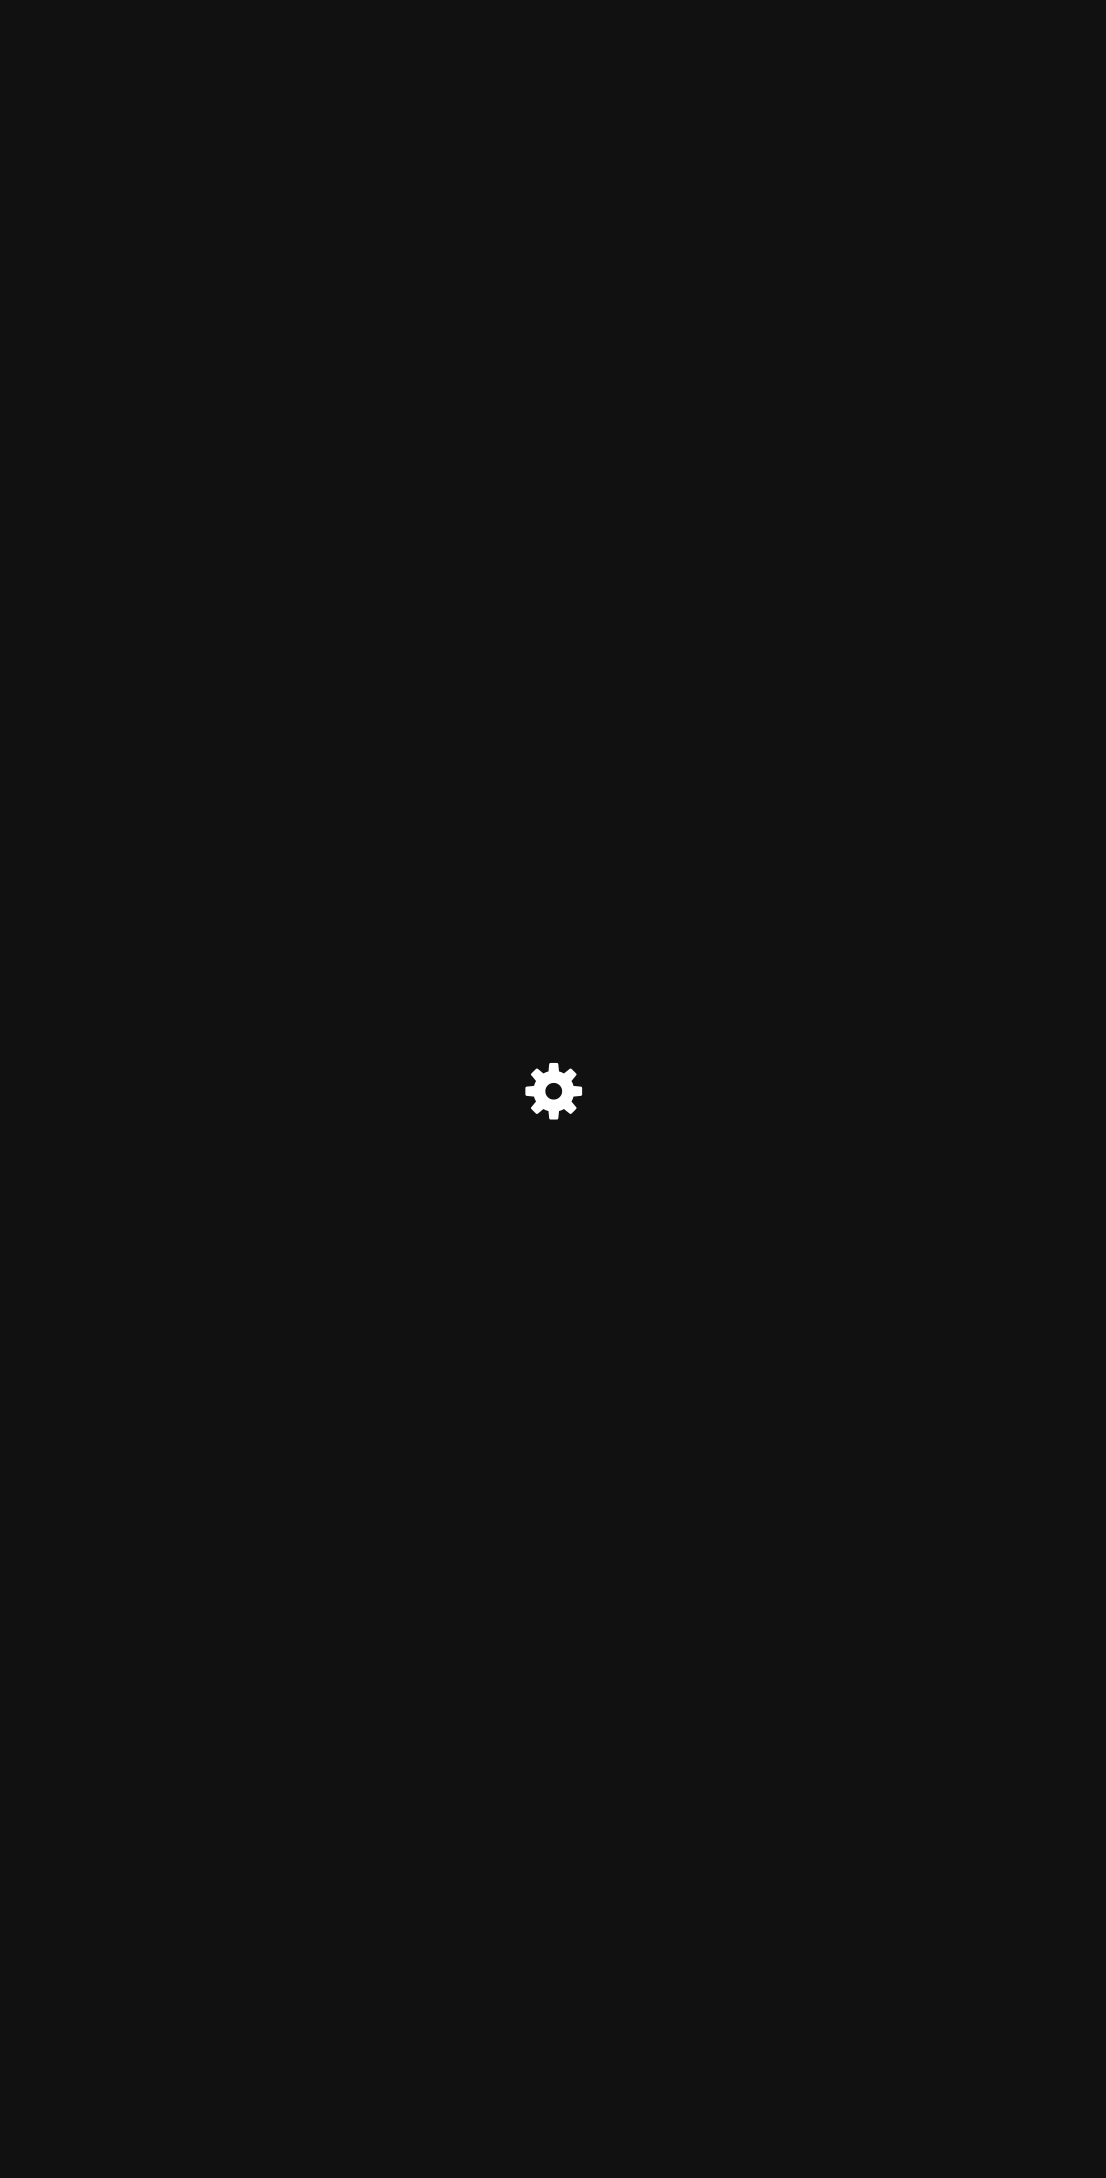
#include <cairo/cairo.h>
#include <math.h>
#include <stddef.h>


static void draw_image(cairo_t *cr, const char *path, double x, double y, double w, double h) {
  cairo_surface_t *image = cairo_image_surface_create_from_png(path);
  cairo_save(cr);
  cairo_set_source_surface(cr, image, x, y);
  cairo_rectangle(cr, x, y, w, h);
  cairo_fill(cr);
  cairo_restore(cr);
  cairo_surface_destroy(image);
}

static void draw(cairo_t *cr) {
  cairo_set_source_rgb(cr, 17 / 255.0, 17 / 255.0, 17 / 255.0);
  cairo_paint(cr);
  draw_image(cr, "images/1.png", 525, 1062, 58, 58);
}

int main(void) {
  cairo_surface_t *surface = cairo_image_surface_create(CAIRO_FORMAT_RGB24, 1106, 2178);
  cairo_t *cr = cairo_create(surface);
  cairo_font_options_t *options = cairo_font_options_create();
  cairo_font_options_set_hint_metrics(options, CAIRO_HINT_METRICS_OFF);
  cairo_font_options_set_hint_style(options, CAIRO_HINT_STYLE_NONE);
  cairo_set_font_options(cr, options);
  cairo_set_miter_limit(cr, 4);
  draw(cr);
  cairo_surface_write_to_png(surface, "out.png");
  cairo_font_options_destroy(options);
  cairo_destroy(cr);
  cairo_surface_destroy(surface);
  return 0;
}
